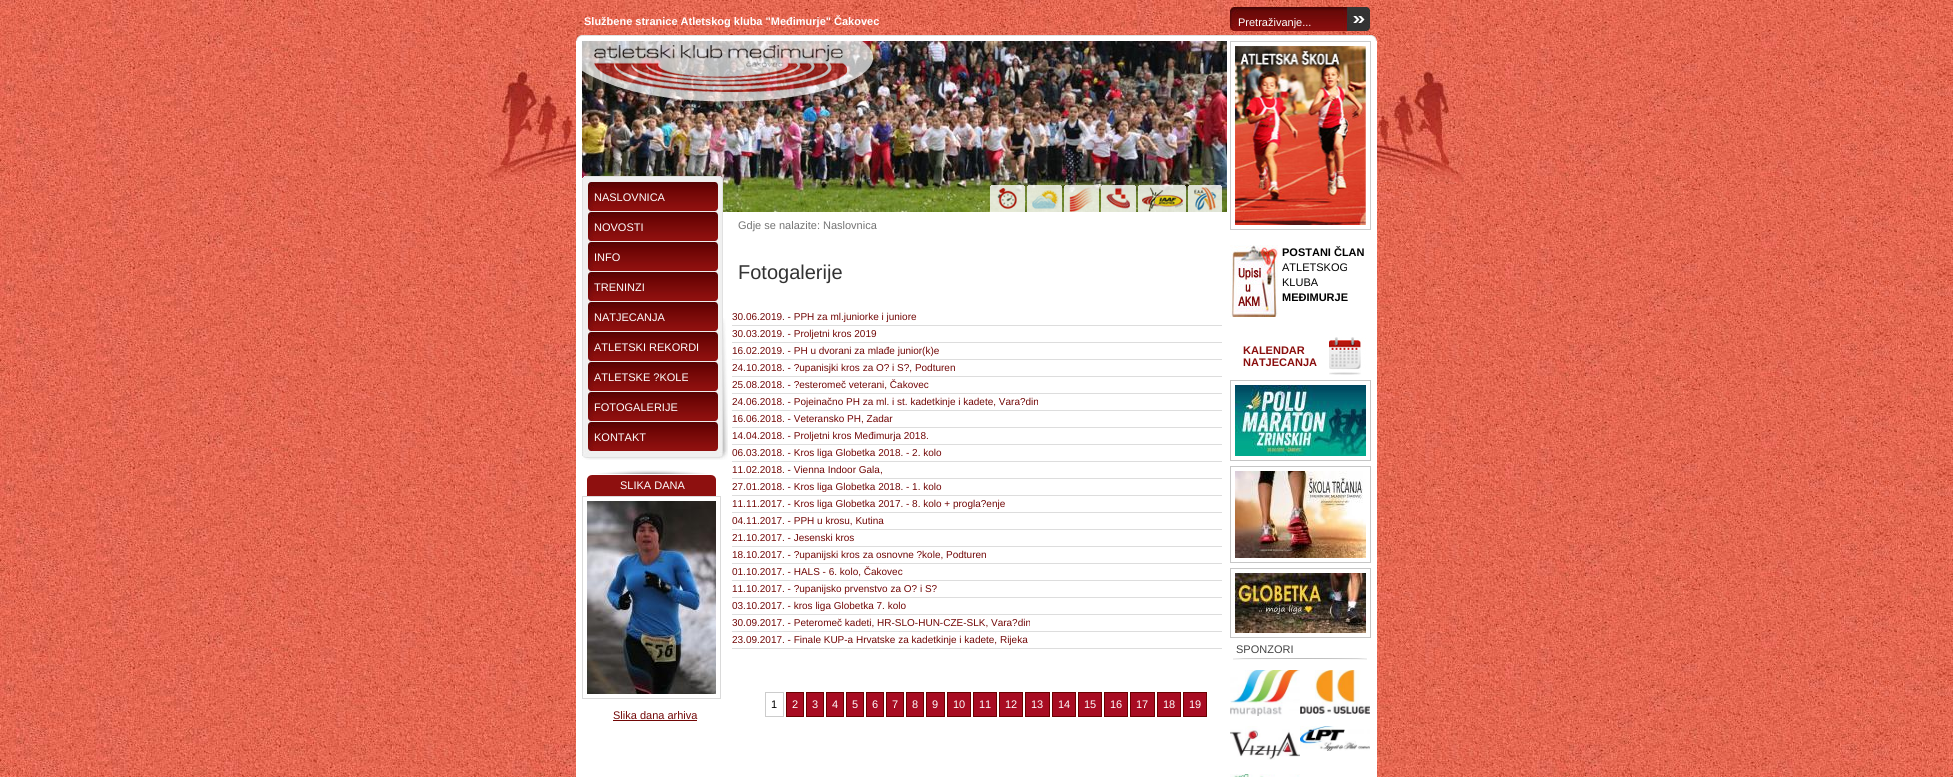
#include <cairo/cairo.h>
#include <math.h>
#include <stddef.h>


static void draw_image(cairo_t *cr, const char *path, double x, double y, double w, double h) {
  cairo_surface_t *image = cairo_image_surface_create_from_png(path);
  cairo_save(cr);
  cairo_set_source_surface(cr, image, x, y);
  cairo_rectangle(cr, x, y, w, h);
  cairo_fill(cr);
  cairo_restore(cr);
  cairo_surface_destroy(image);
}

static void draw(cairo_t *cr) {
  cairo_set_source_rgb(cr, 1, 1, 1);
  cairo_paint(cr);
  draw_image(cr, "images/1.png", 0, 0, 1953, 777);
  draw_image(cr, "images/2.png", 488, 70, 977, 114);
  draw_image(cr, "images/3.png", 1230, 7, 140, 24);
  cairo_set_source_rgb(cr, 1, 1, 1);
  cairo_rectangle(cr, 576, 41, 801, 736);
  cairo_fill(cr);
  draw_image(cr, "images/4.png", 576, 35, 801, 6);
  draw_image(cr, "images/5.png", 582, 41, 645, 171);
  draw_image(cr, "images/6.png", 582, 41, 292, 69);
  draw_image(cr, "images/7.png", 990, 185, 232, 27);
  draw_image(cr, "images/8.png", 582, 176, 141, 142);
  draw_image(cr, "images/9.png", 582, 318, 146, 142);
  draw_image(cr, "images/10.png", 582, 454, 140, 2);
  draw_image(cr, "images/11.png", 588, 182, 130, 29);
  draw_image(cr, "images/11.png", 588, 212, 130, 29);
  draw_image(cr, "images/11.png", 588, 242, 130, 29);
  draw_image(cr, "images/11.png", 588, 272, 130, 29);
  draw_image(cr, "images/11.png", 588, 302, 130, 29);
  draw_image(cr, "images/11.png", 588, 332, 130, 29);
  draw_image(cr, "images/11.png", 588, 362, 130, 29);
  draw_image(cr, "images/11.png", 588, 392, 130, 29);
  draw_image(cr, "images/11.png", 588, 422, 130, 29);
  draw_image(cr, "images/12.png", 587, 470, 129, 26);
  cairo_rectangle(cr, 582.5, 496.5, 138, 202);
  cairo_set_source_rgb(cr, 218 / 255.0, 218 / 255.0, 218 / 255.0);
  cairo_set_line_width(cr, 1);
  cairo_stroke(cr);
  draw_image(cr, "images/13.png", 587, 501, 129, 193);
  cairo_set_source_rgb(cr, 114 / 255.0, 7 / 255.0, 6 / 255.0);
  cairo_rectangle(cr, 613, 720, 84, 1);
  cairo_fill(cr);
  cairo_set_source_rgb(cr, 221 / 255.0, 221 / 255.0, 221 / 255.0);
  cairo_rectangle(cr, 732, 325, 490, 1);
  cairo_fill(cr);
  cairo_rectangle(cr, 732, 342, 490, 1);
  cairo_fill(cr);
  cairo_rectangle(cr, 732, 359, 490, 1);
  cairo_fill(cr);
  cairo_rectangle(cr, 732, 376, 490, 1);
  cairo_fill(cr);
  cairo_rectangle(cr, 732, 393, 490, 1);
  cairo_fill(cr);
  cairo_rectangle(cr, 732, 410, 490, 1);
  cairo_fill(cr);
  cairo_rectangle(cr, 732, 427, 490, 1);
  cairo_fill(cr);
  cairo_rectangle(cr, 732, 444, 490, 1);
  cairo_fill(cr);
  cairo_rectangle(cr, 732, 461, 490, 1);
  cairo_fill(cr);
  cairo_rectangle(cr, 732, 478, 490, 1);
  cairo_fill(cr);
  cairo_rectangle(cr, 732, 495, 490, 1);
  cairo_fill(cr);
  cairo_rectangle(cr, 732, 512, 490, 1);
  cairo_fill(cr);
  cairo_rectangle(cr, 732, 529, 490, 1);
  cairo_fill(cr);
  cairo_rectangle(cr, 732, 546, 490, 1);
  cairo_fill(cr);
  cairo_rectangle(cr, 732, 563, 490, 1);
  cairo_fill(cr);
  cairo_rectangle(cr, 732, 580, 490, 1);
  cairo_fill(cr);
  cairo_rectangle(cr, 732, 597, 490, 1);
  cairo_fill(cr);
  cairo_rectangle(cr, 732, 614, 490, 1);
  cairo_fill(cr);
  cairo_rectangle(cr, 732, 631, 490, 1);
  cairo_fill(cr);
  cairo_rectangle(cr, 732, 648, 490, 1);
  cairo_fill(cr);
  cairo_rectangle(cr, 765.5, 692.5, 18, 24);
  cairo_set_source_rgb(cr, 204 / 255.0, 204 / 255.0, 204 / 255.0);
  cairo_stroke(cr);
  cairo_set_source_rgb(cr, 168 / 255.0, 12 / 255.0, 34 / 255.0);
  cairo_rectangle(cr, 786.5, 692.5, 17, 24);
  cairo_fill_preserve(cr);
  cairo_set_source_rgb(cr, 107 / 255.0, 0, 0);
  cairo_stroke(cr);
  cairo_set_source_rgb(cr, 168 / 255.0, 12 / 255.0, 34 / 255.0);
  cairo_rectangle(cr, 806.5, 692.5, 17, 24);
  cairo_fill_preserve(cr);
  cairo_set_source_rgb(cr, 107 / 255.0, 0, 0);
  cairo_stroke(cr);
  cairo_set_source_rgb(cr, 168 / 255.0, 12 / 255.0, 34 / 255.0);
  cairo_rectangle(cr, 826.5, 692.5, 17, 24);
  cairo_fill_preserve(cr);
  cairo_set_source_rgb(cr, 107 / 255.0, 0, 0);
  cairo_stroke(cr);
  cairo_set_source_rgb(cr, 168 / 255.0, 12 / 255.0, 34 / 255.0);
  cairo_rectangle(cr, 846.5, 692.5, 17, 24);
  cairo_fill_preserve(cr);
  cairo_set_source_rgb(cr, 107 / 255.0, 0, 0);
  cairo_stroke(cr);
  cairo_set_source_rgb(cr, 168 / 255.0, 12 / 255.0, 34 / 255.0);
  cairo_rectangle(cr, 866.5, 692.5, 17, 24);
  cairo_fill_preserve(cr);
  cairo_set_source_rgb(cr, 107 / 255.0, 0, 0);
  cairo_stroke(cr);
  cairo_set_source_rgb(cr, 168 / 255.0, 12 / 255.0, 34 / 255.0);
  cairo_rectangle(cr, 886.5, 692.5, 17, 24);
  cairo_fill_preserve(cr);
  cairo_set_source_rgb(cr, 107 / 255.0, 0, 0);
  cairo_stroke(cr);
  cairo_set_source_rgb(cr, 168 / 255.0, 12 / 255.0, 34 / 255.0);
  cairo_rectangle(cr, 906.5, 692.5, 17, 24);
  cairo_fill_preserve(cr);
  cairo_set_source_rgb(cr, 107 / 255.0, 0, 0);
  cairo_stroke(cr);
  cairo_set_source_rgb(cr, 168 / 255.0, 12 / 255.0, 34 / 255.0);
  cairo_rectangle(cr, 926.5, 692.5, 18, 24);
  cairo_fill_preserve(cr);
  cairo_set_source_rgb(cr, 107 / 255.0, 0, 0);
  cairo_stroke(cr);
  cairo_set_source_rgb(cr, 168 / 255.0, 12 / 255.0, 34 / 255.0);
  cairo_rectangle(cr, 947.5, 692.5, 23, 24);
  cairo_fill_preserve(cr);
  cairo_set_source_rgb(cr, 107 / 255.0, 0, 0);
  cairo_stroke(cr);
  cairo_set_source_rgb(cr, 168 / 255.0, 12 / 255.0, 34 / 255.0);
  cairo_rectangle(cr, 973.5, 692.5, 23, 24);
  cairo_fill_preserve(cr);
  cairo_set_source_rgb(cr, 107 / 255.0, 0, 0);
  cairo_stroke(cr);
  cairo_set_source_rgb(cr, 168 / 255.0, 12 / 255.0, 34 / 255.0);
  cairo_rectangle(cr, 999.5, 692.5, 23, 24);
  cairo_fill_preserve(cr);
  cairo_set_source_rgb(cr, 107 / 255.0, 0, 0);
  cairo_stroke(cr);
  cairo_set_source_rgb(cr, 168 / 255.0, 12 / 255.0, 34 / 255.0);
  cairo_rectangle(cr, 1025.5, 692.5, 24, 24);
  cairo_fill_preserve(cr);
  cairo_set_source_rgb(cr, 107 / 255.0, 0, 0);
  cairo_stroke(cr);
  cairo_set_source_rgb(cr, 168 / 255.0, 12 / 255.0, 34 / 255.0);
  cairo_rectangle(cr, 1052.5, 692.5, 23, 24);
  cairo_fill_preserve(cr);
  cairo_set_source_rgb(cr, 107 / 255.0, 0, 0);
  cairo_stroke(cr);
  cairo_set_source_rgb(cr, 168 / 255.0, 12 / 255.0, 34 / 255.0);
  cairo_rectangle(cr, 1078.5, 692.5, 23, 24);
  cairo_fill_preserve(cr);
  cairo_set_source_rgb(cr, 107 / 255.0, 0, 0);
  cairo_stroke(cr);
  cairo_set_source_rgb(cr, 168 / 255.0, 12 / 255.0, 34 / 255.0);
  cairo_rectangle(cr, 1104.5, 692.5, 23, 24);
  cairo_fill_preserve(cr);
  cairo_set_source_rgb(cr, 107 / 255.0, 0, 0);
  cairo_stroke(cr);
  cairo_set_source_rgb(cr, 168 / 255.0, 12 / 255.0, 34 / 255.0);
  cairo_rectangle(cr, 1130.5, 692.5, 24, 24);
  cairo_fill_preserve(cr);
  cairo_set_source_rgb(cr, 107 / 255.0, 0, 0);
  cairo_stroke(cr);
  cairo_set_source_rgb(cr, 168 / 255.0, 12 / 255.0, 34 / 255.0);
  cairo_rectangle(cr, 1157.5, 692.5, 23, 24);
  cairo_fill_preserve(cr);
  cairo_set_source_rgb(cr, 107 / 255.0, 0, 0);
  cairo_stroke(cr);
  cairo_set_source_rgb(cr, 168 / 255.0, 12 / 255.0, 34 / 255.0);
  cairo_rectangle(cr, 1183.5, 692.5, 23, 24);
  cairo_fill_preserve(cr);
  cairo_set_source_rgb(cr, 107 / 255.0, 0, 0);
  cairo_stroke(cr);
  cairo_rectangle(cr, 1230.5, 41.5, 140, 188);
  cairo_set_source_rgb(cr, 204 / 255.0, 204 / 255.0, 204 / 255.0);
  cairo_stroke(cr);
  draw_image(cr, "images/14.png", 1235, 46, 131, 179);
  draw_image(cr, "images/15.png", 1230, 245, 48, 72);
  draw_image(cr, "images/16.png", 1329, 337, 37, 38);
  cairo_rectangle(cr, 1230.5, 380.5, 140, 80);
  cairo_set_source_rgb(cr, 198 / 255.0, 198 / 255.0, 198 / 255.0);
  cairo_stroke(cr);
  draw_image(cr, "images/17.png", 1235, 385, 131, 71);
  cairo_rectangle(cr, 1230.5, 466.5, 140, 96);
  cairo_stroke(cr);
  draw_image(cr, "images/18.png", 1235, 471, 131, 87);
  cairo_rectangle(cr, 1230.5, 568.5, 140, 69);
  cairo_stroke(cr);
  draw_image(cr, "images/19.png", 1235, 573, 131, 60);
  draw_image(cr, "images/20.png", 1233, 658, 134, 2);
  draw_image(cr, "images/21.png", 1230, 670, 70, 46);
  draw_image(cr, "images/22.png", 1300, 670, 70, 44);
  draw_image(cr, "images/23.png", 1230, 726, 70, 34);
  draw_image(cr, "images/24.png", 1300, 726, 70, 25);
  draw_image(cr, "images/25.png", 1230, 774, 70, 3);
  cairo_select_font_face(cr, "Liberation Sans", CAIRO_FONT_SLANT_NORMAL, CAIRO_FONT_WEIGHT_BOLD);
  cairo_set_font_size(cr, 11);
  cairo_set_source_rgb(cr, 1, 1, 1);
  cairo_move_to(cr, 584, 25);
  cairo_show_text(cr, "Službene stranice Atletskog kluba \"Međimurje\" Čakovec");
  cairo_select_font_face(cr, "Liberation Sans", CAIRO_FONT_SLANT_NORMAL, CAIRO_FONT_WEIGHT_NORMAL);
  cairo_move_to(cr, 1238, 26);
  cairo_show_text(cr, "Pretraživanje...");
  cairo_move_to(cr, 594, 201);
  cairo_show_text(cr, "NASLOVNICA");
  cairo_move_to(cr, 594, 231);
  cairo_show_text(cr, "NOVOSTI");
  cairo_move_to(cr, 594, 261);
  cairo_show_text(cr, "INFO");
  cairo_move_to(cr, 594, 291);
  cairo_show_text(cr, "TRENINZI");
  cairo_move_to(cr, 594, 321);
  cairo_show_text(cr, "NATJECANJA");
  cairo_move_to(cr, 594, 351);
  cairo_show_text(cr, "ATLETSKI REKORDI");
  cairo_move_to(cr, 594, 381);
  cairo_show_text(cr, "ATLETSKE ?KOLE");
  cairo_move_to(cr, 594, 411);
  cairo_show_text(cr, "FOTOGALERIJE");
  cairo_move_to(cr, 594, 441);
  cairo_show_text(cr, "KONTAKT");
  cairo_move_to(cr, 620, 489);
  cairo_show_text(cr, "SLIKA DANA");
  cairo_set_source_rgb(cr, 114 / 255.0, 7 / 255.0, 6 / 255.0);
  cairo_move_to(cr, 613, 719);
  cairo_show_text(cr, "Slika dana arhiva");
  cairo_set_source_rgb(cr, 115 / 255.0, 115 / 255.0, 115 / 255.0);
  cairo_move_to(cr, 738, 229);
  cairo_show_text(cr, "Gdje se nalazite: Naslovnica");
  cairo_set_font_size(cr, 20);
  cairo_set_source_rgb(cr, 51 / 255.0, 51 / 255.0, 51 / 255.0);
  cairo_move_to(cr, 738, 279);
  cairo_show_text(cr, "Fotogalerije");
  cairo_set_font_size(cr, 10);
  cairo_set_source_rgb(cr, 114 / 255.0, 7 / 255.0, 6 / 255.0);
  cairo_move_to(cr, 732, 320);
  cairo_show_text(cr, "30.06.2019. - PPH za ml.juniorke i juniore");
  cairo_move_to(cr, 732, 337);
  cairo_show_text(cr, "30.03.2019. - Proljetni kros 2019");
  cairo_move_to(cr, 732, 354);
  cairo_show_text(cr, "16.02.2019. - PH u dvorani za mlađe junior(k)e");
  cairo_move_to(cr, 732, 371);
  cairo_show_text(cr, "24.10.2018. - ?upanisjki kros za O? i S?, Podturen");
  cairo_move_to(cr, 732, 388);
  cairo_show_text(cr, "25.08.2018. - ?esteromeč veterani, Čakovec");
  cairo_move_to(cr, 732, 405);
  cairo_show_text(cr, "24.06.2018. - Pojeinačno PH za ml. i st. kadetkinje i kadete, Vara?din");
  cairo_move_to(cr, 732, 422);
  cairo_show_text(cr, "16.06.2018. - Veteransko PH, Zadar");
  cairo_move_to(cr, 732, 439);
  cairo_show_text(cr, "14.04.2018. - Proljetni kros Međimurja 2018.");
  cairo_move_to(cr, 732, 456);
  cairo_show_text(cr, "06.03.2018. - Kros liga Globetka 2018. - 2. kolo");
  cairo_move_to(cr, 732, 473);
  cairo_show_text(cr, "11.02.2018. - Vienna Indoor Gala,");
  cairo_move_to(cr, 732, 490);
  cairo_show_text(cr, "27.01.2018. - Kros liga Globetka 2018. - 1. kolo");
  cairo_move_to(cr, 732, 507);
  cairo_show_text(cr, "11.11.2017. - Kros liga Globetka 2017. - 8. kolo + progla?enje");
  cairo_move_to(cr, 732, 524);
  cairo_show_text(cr, "04.11.2017. - PPH u krosu, Kutina");
  cairo_move_to(cr, 732, 541);
  cairo_show_text(cr, "21.10.2017. - Jesenski kros");
  cairo_move_to(cr, 732, 558);
  cairo_show_text(cr, "18.10.2017. - ?upanijski kros za osnovne ?kole, Podturen");
  cairo_move_to(cr, 732, 575);
  cairo_show_text(cr, "01.10.2017. - HALS - 6. kolo, Čakovec");
  cairo_move_to(cr, 732, 592);
  cairo_show_text(cr, "11.10.2017. - ?upanijsko prvenstvo za O? i S?");
  cairo_move_to(cr, 732, 609);
  cairo_show_text(cr, "03.10.2017. - kros liga Globetka 7. kolo");
  cairo_move_to(cr, 732, 626);
  cairo_show_text(cr, "30.09.2017. - Peteromeč kadeti, HR-SLO-HUN-CZE-SLK, Vara?din");
  cairo_move_to(cr, 732, 643);
  cairo_show_text(cr, "23.09.2017. - Finale KUP-a Hrvatske za kadetkinje i kadete, Rijeka");
  cairo_set_font_size(cr, 11);
  cairo_set_source_rgb(cr, 0, 0, 0);
  cairo_move_to(cr, 771, 708);
  cairo_show_text(cr, "1");
  cairo_set_source_rgb(cr, 1, 1, 1);
  cairo_move_to(cr, 792, 708);
  cairo_show_text(cr, "2");
  cairo_move_to(cr, 812, 708);
  cairo_show_text(cr, "3");
  cairo_move_to(cr, 832, 708);
  cairo_show_text(cr, "4");
  cairo_move_to(cr, 852, 708);
  cairo_show_text(cr, "5");
  cairo_move_to(cr, 872, 708);
  cairo_show_text(cr, "6");
  cairo_move_to(cr, 892, 708);
  cairo_show_text(cr, "7");
  cairo_move_to(cr, 912, 708);
  cairo_show_text(cr, "8");
  cairo_move_to(cr, 932, 708);
  cairo_show_text(cr, "9");
  cairo_move_to(cr, 953, 708);
  cairo_show_text(cr, "10");
  cairo_move_to(cr, 979, 708);
  cairo_show_text(cr, "11");
  cairo_move_to(cr, 1005, 708);
  cairo_show_text(cr, "12");
  cairo_move_to(cr, 1031, 708);
  cairo_show_text(cr, "13");
  cairo_move_to(cr, 1058, 708);
  cairo_show_text(cr, "14");
  cairo_move_to(cr, 1084, 708);
  cairo_show_text(cr, "15");
  cairo_move_to(cr, 1110, 708);
  cairo_show_text(cr, "16");
  cairo_move_to(cr, 1136, 708);
  cairo_show_text(cr, "17");
  cairo_move_to(cr, 1163, 708);
  cairo_show_text(cr, "18");
  cairo_move_to(cr, 1189, 708);
  cairo_show_text(cr, "19");
  cairo_select_font_face(cr, "Liberation Sans", CAIRO_FONT_SLANT_NORMAL, CAIRO_FONT_WEIGHT_BOLD);
  cairo_set_source_rgb(cr, 0, 0, 0);
  cairo_move_to(cr, 1282, 256);
  cairo_show_text(cr, "POSTANI ČLAN");
  cairo_select_font_face(cr, "Liberation Sans", CAIRO_FONT_SLANT_NORMAL, CAIRO_FONT_WEIGHT_NORMAL);
  cairo_move_to(cr, 1282, 271);
  cairo_show_text(cr, "ATLETSKOG");
  cairo_move_to(cr, 1282, 286);
  cairo_show_text(cr, "KLUBA");
  cairo_select_font_face(cr, "Liberation Sans", CAIRO_FONT_SLANT_NORMAL, CAIRO_FONT_WEIGHT_BOLD);
  cairo_move_to(cr, 1282, 301);
  cairo_show_text(cr, "MEĐIMURJE");
  cairo_set_source_rgb(cr, 138 / 255.0, 14 / 255.0, 13 / 255.0);
  cairo_move_to(cr, 1243, 354);
  cairo_show_text(cr, "KALENDAR");
  cairo_move_to(cr, 1243, 366);
  cairo_show_text(cr, "NATJECANJA");
  cairo_select_font_face(cr, "Liberation Sans", CAIRO_FONT_SLANT_NORMAL, CAIRO_FONT_WEIGHT_NORMAL);
  cairo_set_source_rgb(cr, 67 / 255.0, 67 / 255.0, 67 / 255.0);
  cairo_move_to(cr, 1236, 653);
  cairo_show_text(cr, "SPONZORI");
}

int main(void) {
  cairo_surface_t *surface = cairo_image_surface_create(CAIRO_FORMAT_RGB24, 1953, 777);
  cairo_t *cr = cairo_create(surface);
  cairo_font_options_t *options = cairo_font_options_create();
  cairo_font_options_set_hint_metrics(options, CAIRO_HINT_METRICS_OFF);
  cairo_font_options_set_hint_style(options, CAIRO_HINT_STYLE_NONE);
  cairo_set_font_options(cr, options);
  cairo_set_miter_limit(cr, 4);
  draw(cr);
  cairo_surface_write_to_png(surface, "out.png");
  cairo_font_options_destroy(options);
  cairo_destroy(cr);
  cairo_surface_destroy(surface);
  return 0;
}
